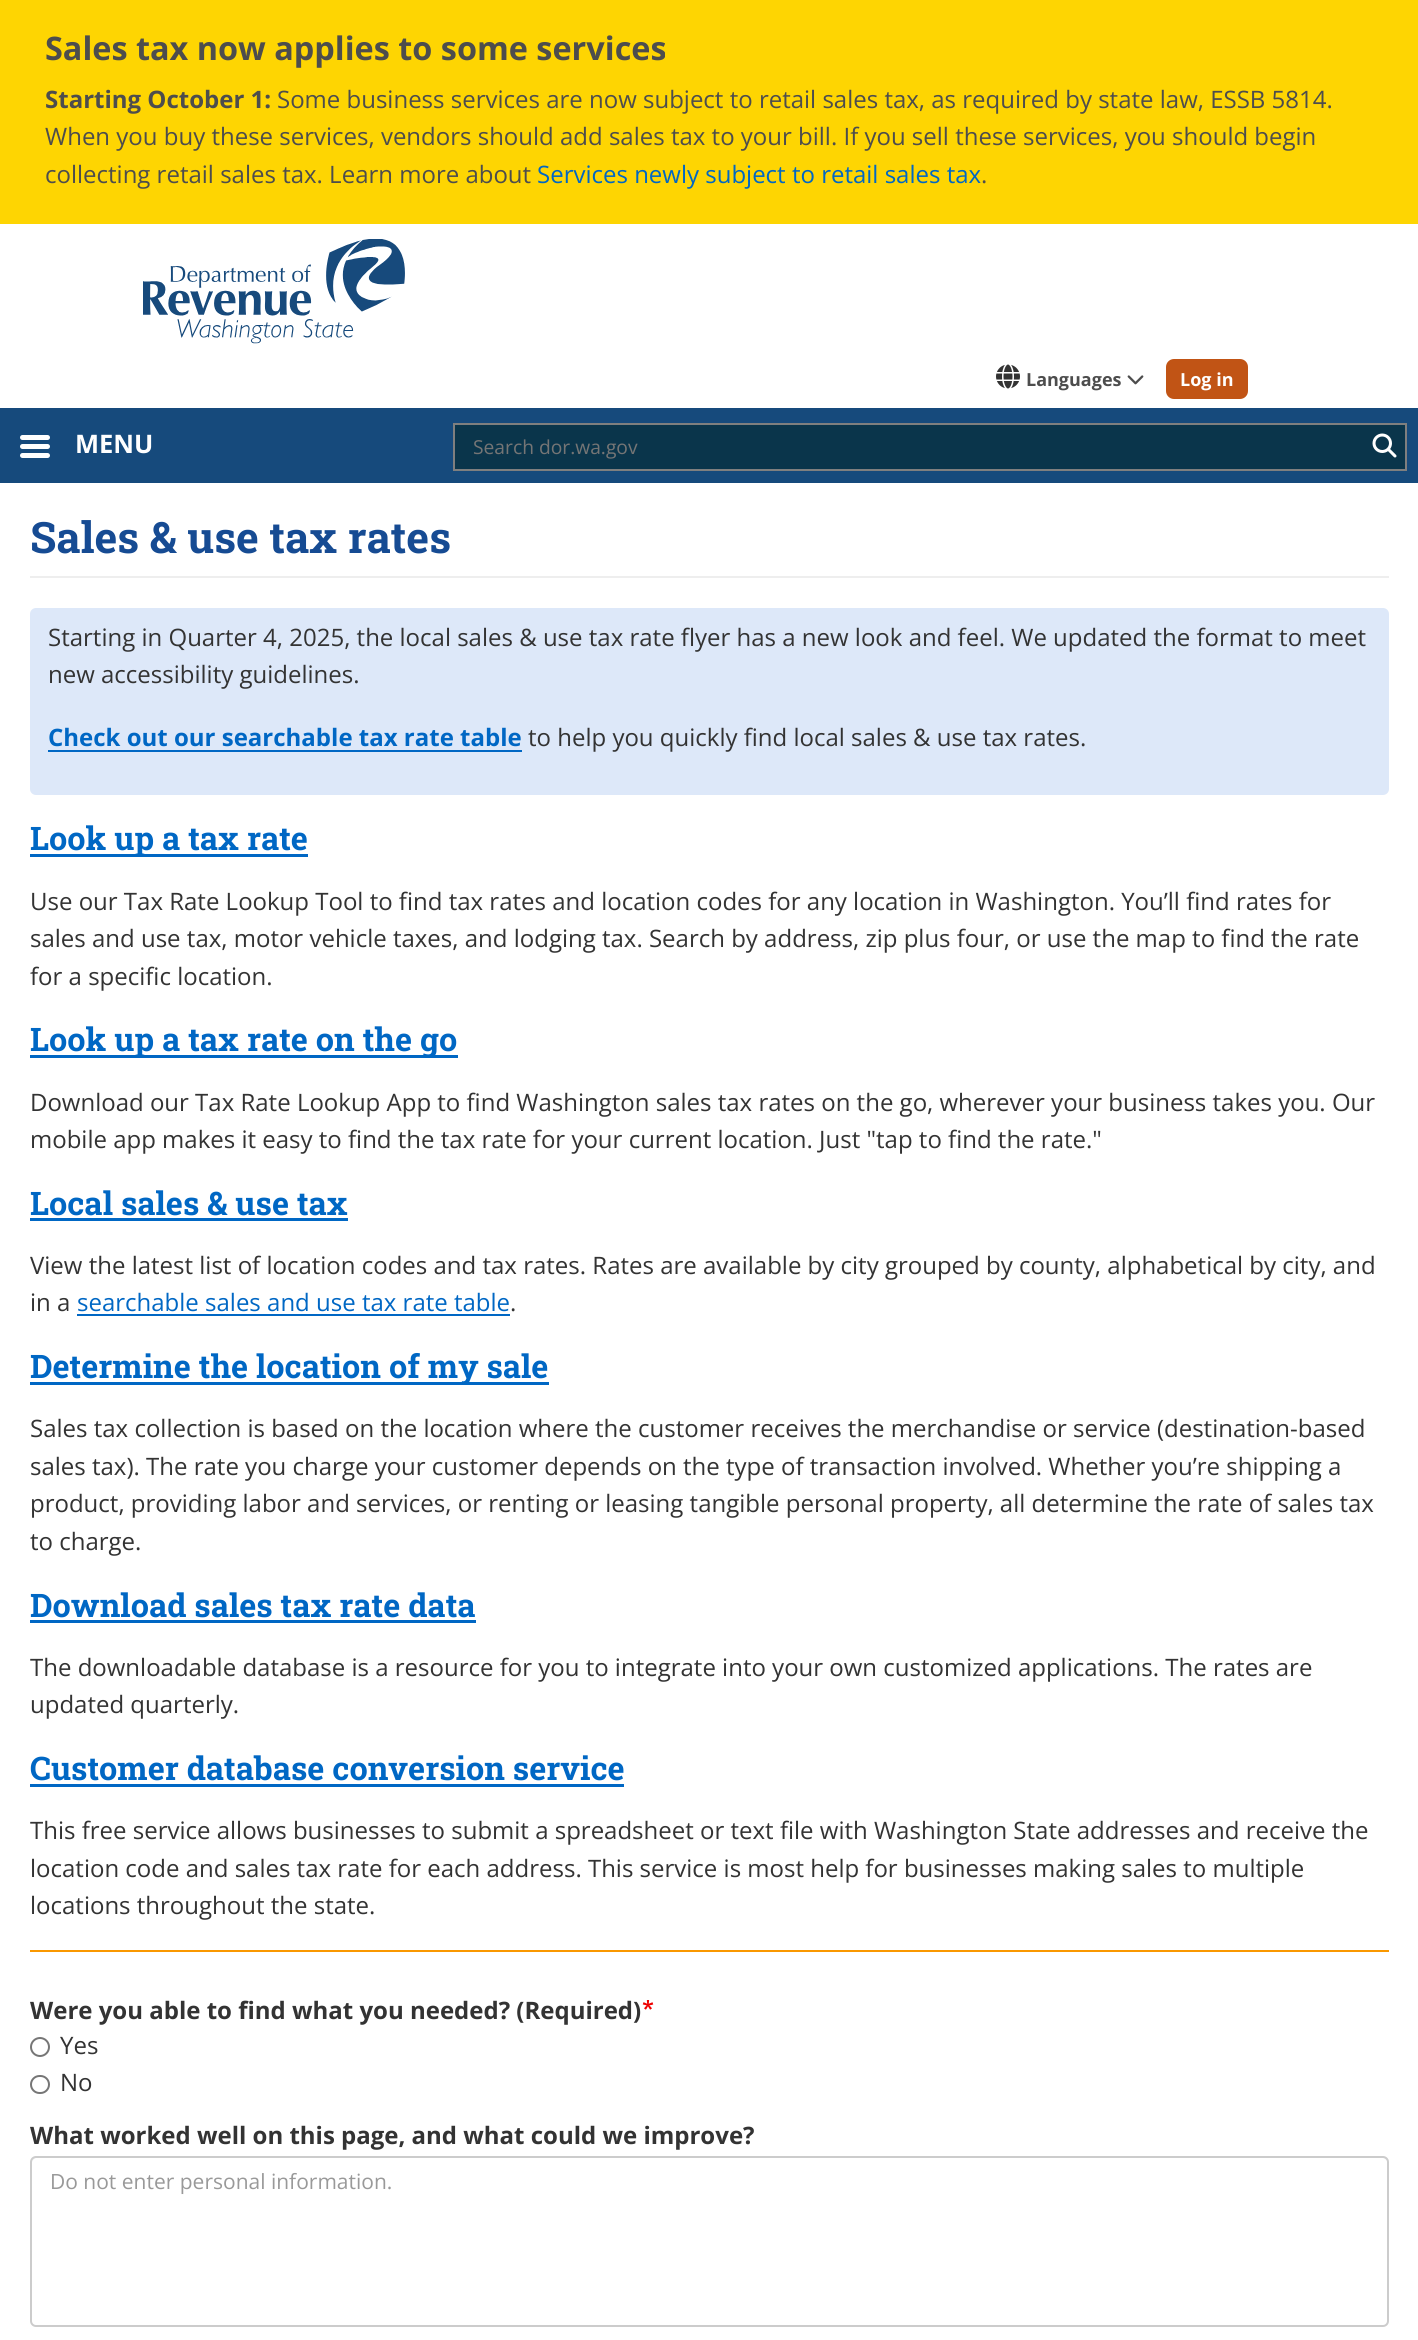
#include <cairo/cairo.h>
#include <math.h>
#include <stddef.h>


static void rounded_rect(cairo_t *cr, double x, double y, double w, double h, double r) {
  cairo_new_sub_path(cr);
  cairo_arc(cr, x + w - r, y + h - r, r, 0, M_PI / 2);
  cairo_arc(cr, x + r, y + h - r, r, M_PI / 2, M_PI);
  cairo_arc(cr, x + r, y + r, r, M_PI, 1.5 * M_PI);
  cairo_arc(cr, x + w - r, y + r, r, 1.5 * M_PI, 2 * M_PI);
  cairo_close_path(cr);
}

static void draw_image(cairo_t *cr, const char *path, double x, double y, double w, double h) {
  cairo_surface_t *image = cairo_image_surface_create_from_png(path);
  cairo_save(cr);
  cairo_set_source_surface(cr, image, x, y);
  cairo_rectangle(cr, x, y, w, h);
  cairo_fill(cr);
  cairo_restore(cr);
  cairo_surface_destroy(image);
}

static void draw(cairo_t *cr) {
  cairo_set_source_rgb(cr, 1, 1, 1);
  cairo_paint(cr);
  cairo_set_source_rgb(cr, 254 / 255.0, 213 / 255.0, 2 / 255.0);
  cairo_rectangle(cr, 0, 0, 1418, 224);
  cairo_fill(cr);
  draw_image(cr, "images/1.png", 143, 239, 262, 105);
  draw_image(cr, "images/2.png", 996, 364, 24, 25);
  draw_image(cr, "images/3.png", 1127, 375, 17, 10);
  cairo_set_source_rgb(cr, 193 / 255.0, 84 / 255.0, 21 / 255.0);
  rounded_rect(cr, 1166, 359, 82, 40, 8);
  cairo_fill(cr);
  cairo_set_source_rgb(cr, 22 / 255.0, 74 / 255.0, 124 / 255.0);
  cairo_rectangle(cr, 0, 408, 1418, 75);
  cairo_fill(cr);
  cairo_set_source_rgb(cr, 1, 1, 1);
  rounded_rect(cr, 20, 435, 30, 5, 2.5);
  cairo_fill(cr);
  rounded_rect(cr, 20, 444, 30, 5, 2.5);
  cairo_fill(cr);
  rounded_rect(cr, 20, 453, 30, 5, 2.5);
  cairo_fill(cr);
  cairo_set_source_rgb(cr, 10 / 255.0, 53 / 255.0, 75 / 255.0);
  cairo_rectangle(cr, 454, 424, 952, 46);
  cairo_fill_preserve(cr);
  cairo_set_source_rgb(cr, 127 / 255.0, 127 / 255.0, 127 / 255.0);
  cairo_stroke(cr);
  draw_image(cr, "images/4.png", 1372, 433, 25, 25);
  cairo_set_source_rgb(cr, 238 / 255.0, 238 / 255.0, 238 / 255.0);
  cairo_rectangle(cr, 30, 576, 1359, 2);
  cairo_fill(cr);
  cairo_set_source_rgb(cr, 221 / 255.0, 232 / 255.0, 249 / 255.0);
  rounded_rect(cr, 30, 608, 1359, 187, 6);
  cairo_fill(cr);
  cairo_set_source_rgb(cr, 0, 103 / 255.0, 196 / 255.0);
  cairo_rectangle(cr, 48, 750, 474, 2);
  cairo_fill(cr);
  cairo_rectangle(cr, 30, 854, 278, 3);
  cairo_fill(cr);
  cairo_rectangle(cr, 30, 1055, 428, 3);
  cairo_fill(cr);
  cairo_rectangle(cr, 30, 1218, 318, 3);
  cairo_fill(cr);
  cairo_rectangle(cr, 77, 1314, 433, 2);
  cairo_fill(cr);
  cairo_rectangle(cr, 30, 1382, 519, 3);
  cairo_fill(cr);
  cairo_rectangle(cr, 30, 1620, 446, 3);
  cairo_fill(cr);
  cairo_rectangle(cr, 30, 1784, 594, 3);
  cairo_fill(cr);
  cairo_set_source_rgb(cr, 250 / 255.0, 152 / 255.0, 0);
  cairo_rectangle(cr, 30, 1950, 1359, 2);
  cairo_fill(cr);
  draw_image(cr, "images/5.png", 642, 2000, 12, 10);
  cairo_arc(cr, 40, 2047, 9, 0, 2 * M_PI);
  cairo_set_source_rgb(cr, 118 / 255.0, 118 / 255.0, 118 / 255.0);
  cairo_stroke(cr);
  rounded_rect(cr, 31, 2076, 18, 17, 8.5);
  cairo_stroke(cr);
  cairo_set_source_rgb(cr, 236 / 255.0, 236 / 255.0, 236 / 255.0);
  cairo_new_path(cr);
  cairo_move_to(cr, 36, 2158);
  cairo_line_to(cr, 1383, 2158);
  cairo_curve_to(cr, 1385, 2158, 1388, 2161, 1388, 2163);
  cairo_curve_to(cr, 1388, 2160, 1386, 2157, 1383, 2157);
  cairo_line_to(cr, 37, 2157);
  cairo_curve_to(cr, 34, 2157, 32, 2160, 32, 2163);
  cairo_curve_to(cr, 32, 2161, 34, 2158, 36, 2158);
  cairo_close_path(cr);
  cairo_fill(cr);
  rounded_rect(cr, 31, 2157, 1357, 169, 5);
  cairo_set_source_rgb(cr, 204 / 255.0, 204 / 255.0, 204 / 255.0);
  cairo_stroke(cr);
  cairo_select_font_face(cr, "Open Sans", CAIRO_FONT_SLANT_NORMAL, CAIRO_FONT_WEIGHT_BOLD);
  cairo_set_font_size(cr, 32.4);
  cairo_set_source_rgb(cr, 77 / 255.0, 77 / 255.0, 77 / 255.0);
  cairo_move_to(cr, 45, 60);
  cairo_show_text(cr, "Sales tax now applies to some services");
  cairo_set_font_size(cr, 24);
  cairo_move_to(cr, 45, 108);
  cairo_show_text(cr, "Starting October 1:");
  cairo_select_font_face(cr, "Open Sans", CAIRO_FONT_SLANT_NORMAL, CAIRO_FONT_WEIGHT_NORMAL);
  cairo_move_to(cr, 277, 108);
  cairo_show_text(cr, "Some business services are now subject to retail sales tax, as required by state law, ESSB 5814.");
  cairo_move_to(cr, 45, 145);
  cairo_show_text(cr, "When you buy these services, vendors should add sales tax to your bill. If you sell these services, you should begin");
  cairo_move_to(cr, 45, 183);
  cairo_show_text(cr, "collecting retail sales tax. Learn more about");
  cairo_set_source_rgb(cr, 0, 103 / 255.0, 196 / 255.0);
  cairo_move_to(cr, 537, 183);
  cairo_show_text(cr, "Services newly subject to retail sales tax");
  cairo_set_source_rgb(cr, 77 / 255.0, 77 / 255.0, 77 / 255.0);
  cairo_move_to(cr, 981, 183);
  cairo_show_text(cr, ".");
  cairo_select_font_face(cr, "Open Sans", CAIRO_FONT_SLANT_NORMAL, CAIRO_FONT_WEIGHT_BOLD);
  cairo_set_font_size(cr, 18);
  cairo_move_to(cr, 1026, 386);
  cairo_show_text(cr, "Languages");
  cairo_set_source_rgb(cr, 1, 1, 1);
  cairo_move_to(cr, 1180, 386);
  cairo_show_text(cr, "Log in");
  cairo_set_font_size(cr, 25.5);
  cairo_move_to(cr, 75, 453);
  cairo_show_text(cr, "MENU");
  cairo_select_font_face(cr, "Open Sans", CAIRO_FONT_SLANT_NORMAL, CAIRO_FONT_WEIGHT_NORMAL);
  cairo_set_font_size(cr, 19.25);
  cairo_set_source_rgb(cr, 117 / 255.0, 117 / 255.0, 117 / 255.0);
  cairo_move_to(cr, 473, 454);
  cairo_show_text(cr, "Search dor.wa.gov");
  cairo_select_font_face(cr, "Roboto Slab", CAIRO_FONT_SLANT_NORMAL, CAIRO_FONT_WEIGHT_BOLD);
  cairo_set_font_size(cr, 43.25);
  cairo_set_source_rgb(cr, 22 / 255.0, 75 / 255.0, 147 / 255.0);
  cairo_move_to(cr, 30, 553);
  cairo_show_text(cr, "Sales & use tax rates");
  cairo_select_font_face(cr, "Open Sans", CAIRO_FONT_SLANT_NORMAL, CAIRO_FONT_WEIGHT_NORMAL);
  cairo_set_font_size(cr, 24);
  cairo_set_source_rgb(cr, 51 / 255.0, 51 / 255.0, 51 / 255.0);
  cairo_move_to(cr, 48, 646);
  cairo_show_text(cr, "Starting in Quarter 4, 2025, the local sales & use tax rate flyer has a new look and feel. We updated the format to meet");
  cairo_move_to(cr, 48, 683);
  cairo_show_text(cr, "new accessibility guidelines.");
  cairo_select_font_face(cr, "Open Sans", CAIRO_FONT_SLANT_NORMAL, CAIRO_FONT_WEIGHT_BOLD);
  cairo_set_source_rgb(cr, 0, 103 / 255.0, 196 / 255.0);
  cairo_move_to(cr, 48, 746);
  cairo_show_text(cr, "Check out our searchable tax rate table");
  cairo_select_font_face(cr, "Open Sans", CAIRO_FONT_SLANT_NORMAL, CAIRO_FONT_WEIGHT_NORMAL);
  cairo_set_source_rgb(cr, 51 / 255.0, 51 / 255.0, 51 / 255.0);
  cairo_move_to(cr, 528, 746);
  cairo_show_text(cr, "to help you quickly find local sales & use tax rates.");
  cairo_select_font_face(cr, "Roboto Slab", CAIRO_FONT_SLANT_NORMAL, CAIRO_FONT_WEIGHT_BOLD);
  cairo_set_font_size(cr, 32.4);
  cairo_set_source_rgb(cr, 0, 103 / 255.0, 196 / 255.0);
  cairo_move_to(cr, 30, 850);
  cairo_show_text(cr, "Look up a tax rate");
  cairo_select_font_face(cr, "Open Sans", CAIRO_FONT_SLANT_NORMAL, CAIRO_FONT_WEIGHT_NORMAL);
  cairo_set_font_size(cr, 24);
  cairo_set_source_rgb(cr, 51 / 255.0, 51 / 255.0, 51 / 255.0);
  cairo_move_to(cr, 30, 910);
  cairo_show_text(cr, "Use our Tax Rate Lookup Tool to find tax rates and location codes for any location in Washington. You’ll find rates for");
  cairo_move_to(cr, 30, 947);
  cairo_show_text(cr, "sales and use tax, motor vehicle taxes, and lodging tax. Search by address, zip plus four, or use the map to find the rate");
  cairo_move_to(cr, 30, 985);
  cairo_show_text(cr, "for a specific location.");
  cairo_select_font_face(cr, "Roboto Slab", CAIRO_FONT_SLANT_NORMAL, CAIRO_FONT_WEIGHT_BOLD);
  cairo_set_font_size(cr, 32.4);
  cairo_set_source_rgb(cr, 0, 103 / 255.0, 196 / 255.0);
  cairo_move_to(cr, 30, 1051);
  cairo_show_text(cr, "Look up a tax rate on the go");
  cairo_select_font_face(cr, "Open Sans", CAIRO_FONT_SLANT_NORMAL, CAIRO_FONT_WEIGHT_NORMAL);
  cairo_set_font_size(cr, 24);
  cairo_set_source_rgb(cr, 51 / 255.0, 51 / 255.0, 51 / 255.0);
  cairo_move_to(cr, 30, 1111);
  cairo_show_text(cr, "Download our Tax Rate Lookup App to find Washington sales tax rates on the go, wherever your business takes you. Our");
  cairo_move_to(cr, 30, 1148);
  cairo_show_text(cr, "mobile app makes it easy to find the tax rate for your current location. Just \"tap to find the rate.\"");
  cairo_select_font_face(cr, "Roboto Slab", CAIRO_FONT_SLANT_NORMAL, CAIRO_FONT_WEIGHT_BOLD);
  cairo_set_font_size(cr, 32.4);
  cairo_set_source_rgb(cr, 0, 103 / 255.0, 196 / 255.0);
  cairo_move_to(cr, 30, 1215);
  cairo_show_text(cr, "Local sales & use tax");
  cairo_select_font_face(cr, "Open Sans", CAIRO_FONT_SLANT_NORMAL, CAIRO_FONT_WEIGHT_NORMAL);
  cairo_set_font_size(cr, 24);
  cairo_set_source_rgb(cr, 51 / 255.0, 51 / 255.0, 51 / 255.0);
  cairo_move_to(cr, 30, 1274);
  cairo_show_text(cr, "View the latest list of location codes and tax rates. Rates are available by city grouped by county, alphabetical by city, and");
  cairo_move_to(cr, 30, 1311);
  cairo_show_text(cr, "in a");
  cairo_set_source_rgb(cr, 0, 103 / 255.0, 196 / 255.0);
  cairo_move_to(cr, 77, 1311);
  cairo_show_text(cr, "searchable sales and use tax rate table");
  cairo_set_source_rgb(cr, 51 / 255.0, 51 / 255.0, 51 / 255.0);
  cairo_move_to(cr, 510, 1311);
  cairo_show_text(cr, ".");
  cairo_select_font_face(cr, "Roboto Slab", CAIRO_FONT_SLANT_NORMAL, CAIRO_FONT_WEIGHT_BOLD);
  cairo_set_font_size(cr, 32.4);
  cairo_set_source_rgb(cr, 0, 103 / 255.0, 196 / 255.0);
  cairo_move_to(cr, 30, 1378);
  cairo_show_text(cr, "Determine the location of my sale");
  cairo_select_font_face(cr, "Open Sans", CAIRO_FONT_SLANT_NORMAL, CAIRO_FONT_WEIGHT_NORMAL);
  cairo_set_font_size(cr, 24);
  cairo_set_source_rgb(cr, 51 / 255.0, 51 / 255.0, 51 / 255.0);
  cairo_move_to(cr, 30, 1437);
  cairo_show_text(cr, "Sales tax collection is based on the location where the customer receives the merchandise or service (destination-based");
  cairo_move_to(cr, 30, 1475);
  cairo_show_text(cr, "sales tax). The rate you charge your customer depends on the type of transaction involved. Whether you’re shipping a");
  cairo_move_to(cr, 30, 1512);
  cairo_show_text(cr, "product, providing labor and services, or renting or leasing tangible personal property, all determine the rate of sales tax");
  cairo_move_to(cr, 30, 1550);
  cairo_show_text(cr, "to charge.");
  cairo_select_font_face(cr, "Roboto Slab", CAIRO_FONT_SLANT_NORMAL, CAIRO_FONT_WEIGHT_BOLD);
  cairo_set_font_size(cr, 32.4);
  cairo_set_source_rgb(cr, 0, 103 / 255.0, 196 / 255.0);
  cairo_move_to(cr, 30, 1617);
  cairo_show_text(cr, "Download sales tax rate data");
  cairo_select_font_face(cr, "Open Sans", CAIRO_FONT_SLANT_NORMAL, CAIRO_FONT_WEIGHT_NORMAL);
  cairo_set_font_size(cr, 24);
  cairo_set_source_rgb(cr, 51 / 255.0, 51 / 255.0, 51 / 255.0);
  cairo_move_to(cr, 30, 1676);
  cairo_show_text(cr, "The downloadable database is a resource for you to integrate into your own customized applications. The rates are");
  cairo_move_to(cr, 30, 1713);
  cairo_show_text(cr, "updated quarterly.");
  cairo_select_font_face(cr, "Roboto Slab", CAIRO_FONT_SLANT_NORMAL, CAIRO_FONT_WEIGHT_BOLD);
  cairo_set_font_size(cr, 32.4);
  cairo_set_source_rgb(cr, 0, 103 / 255.0, 196 / 255.0);
  cairo_move_to(cr, 30, 1780);
  cairo_show_text(cr, "Customer database conversion service");
  cairo_select_font_face(cr, "Open Sans", CAIRO_FONT_SLANT_NORMAL, CAIRO_FONT_WEIGHT_NORMAL);
  cairo_set_font_size(cr, 24);
  cairo_set_source_rgb(cr, 51 / 255.0, 51 / 255.0, 51 / 255.0);
  cairo_move_to(cr, 30, 1839);
  cairo_show_text(cr, "This free service allows businesses to submit a spreadsheet or text file with Washington State addresses and receive the");
  cairo_move_to(cr, 30, 1877);
  cairo_show_text(cr, "location code and sales tax rate for each address. This service is most help for businesses making sales to multiple");
  cairo_move_to(cr, 30, 1914);
  cairo_show_text(cr, "locations throughout the state.");
  cairo_select_font_face(cr, "Open Sans", CAIRO_FONT_SLANT_NORMAL, CAIRO_FONT_WEIGHT_BOLD);
  cairo_move_to(cr, 30, 2019);
  cairo_show_text(cr, "Were you able to find what you needed? (Required)");
  cairo_select_font_face(cr, "Open Sans", CAIRO_FONT_SLANT_NORMAL, CAIRO_FONT_WEIGHT_NORMAL);
  cairo_move_to(cr, 60, 2054);
  cairo_show_text(cr, "Yes");
  cairo_move_to(cr, 60, 2091);
  cairo_show_text(cr, "No");
  cairo_select_font_face(cr, "Open Sans", CAIRO_FONT_SLANT_NORMAL, CAIRO_FONT_WEIGHT_BOLD);
  cairo_move_to(cr, 30, 2144);
  cairo_show_text(cr, "What worked well on this page, and what could we improve?");
  cairo_select_font_face(cr, "Open Sans", CAIRO_FONT_SLANT_NORMAL, CAIRO_FONT_WEIGHT_NORMAL);
  cairo_set_font_size(cr, 21);
  cairo_set_source_rgb(cr, 153 / 255.0, 153 / 255.0, 153 / 255.0);
  cairo_move_to(cr, 50, 2189);
  cairo_show_text(cr, "Do not enter personal information.");
}

int main(void) {
  cairo_surface_t *surface = cairo_image_surface_create(CAIRO_FORMAT_RGB24, 1418, 2340);
  cairo_t *cr = cairo_create(surface);
  cairo_font_options_t *options = cairo_font_options_create();
  cairo_font_options_set_hint_metrics(options, CAIRO_HINT_METRICS_OFF);
  cairo_font_options_set_hint_style(options, CAIRO_HINT_STYLE_NONE);
  cairo_set_font_options(cr, options);
  cairo_set_miter_limit(cr, 4);
  draw(cr);
  cairo_surface_write_to_png(surface, "out.png");
  cairo_font_options_destroy(options);
  cairo_destroy(cr);
  cairo_surface_destroy(surface);
  return 0;
}
